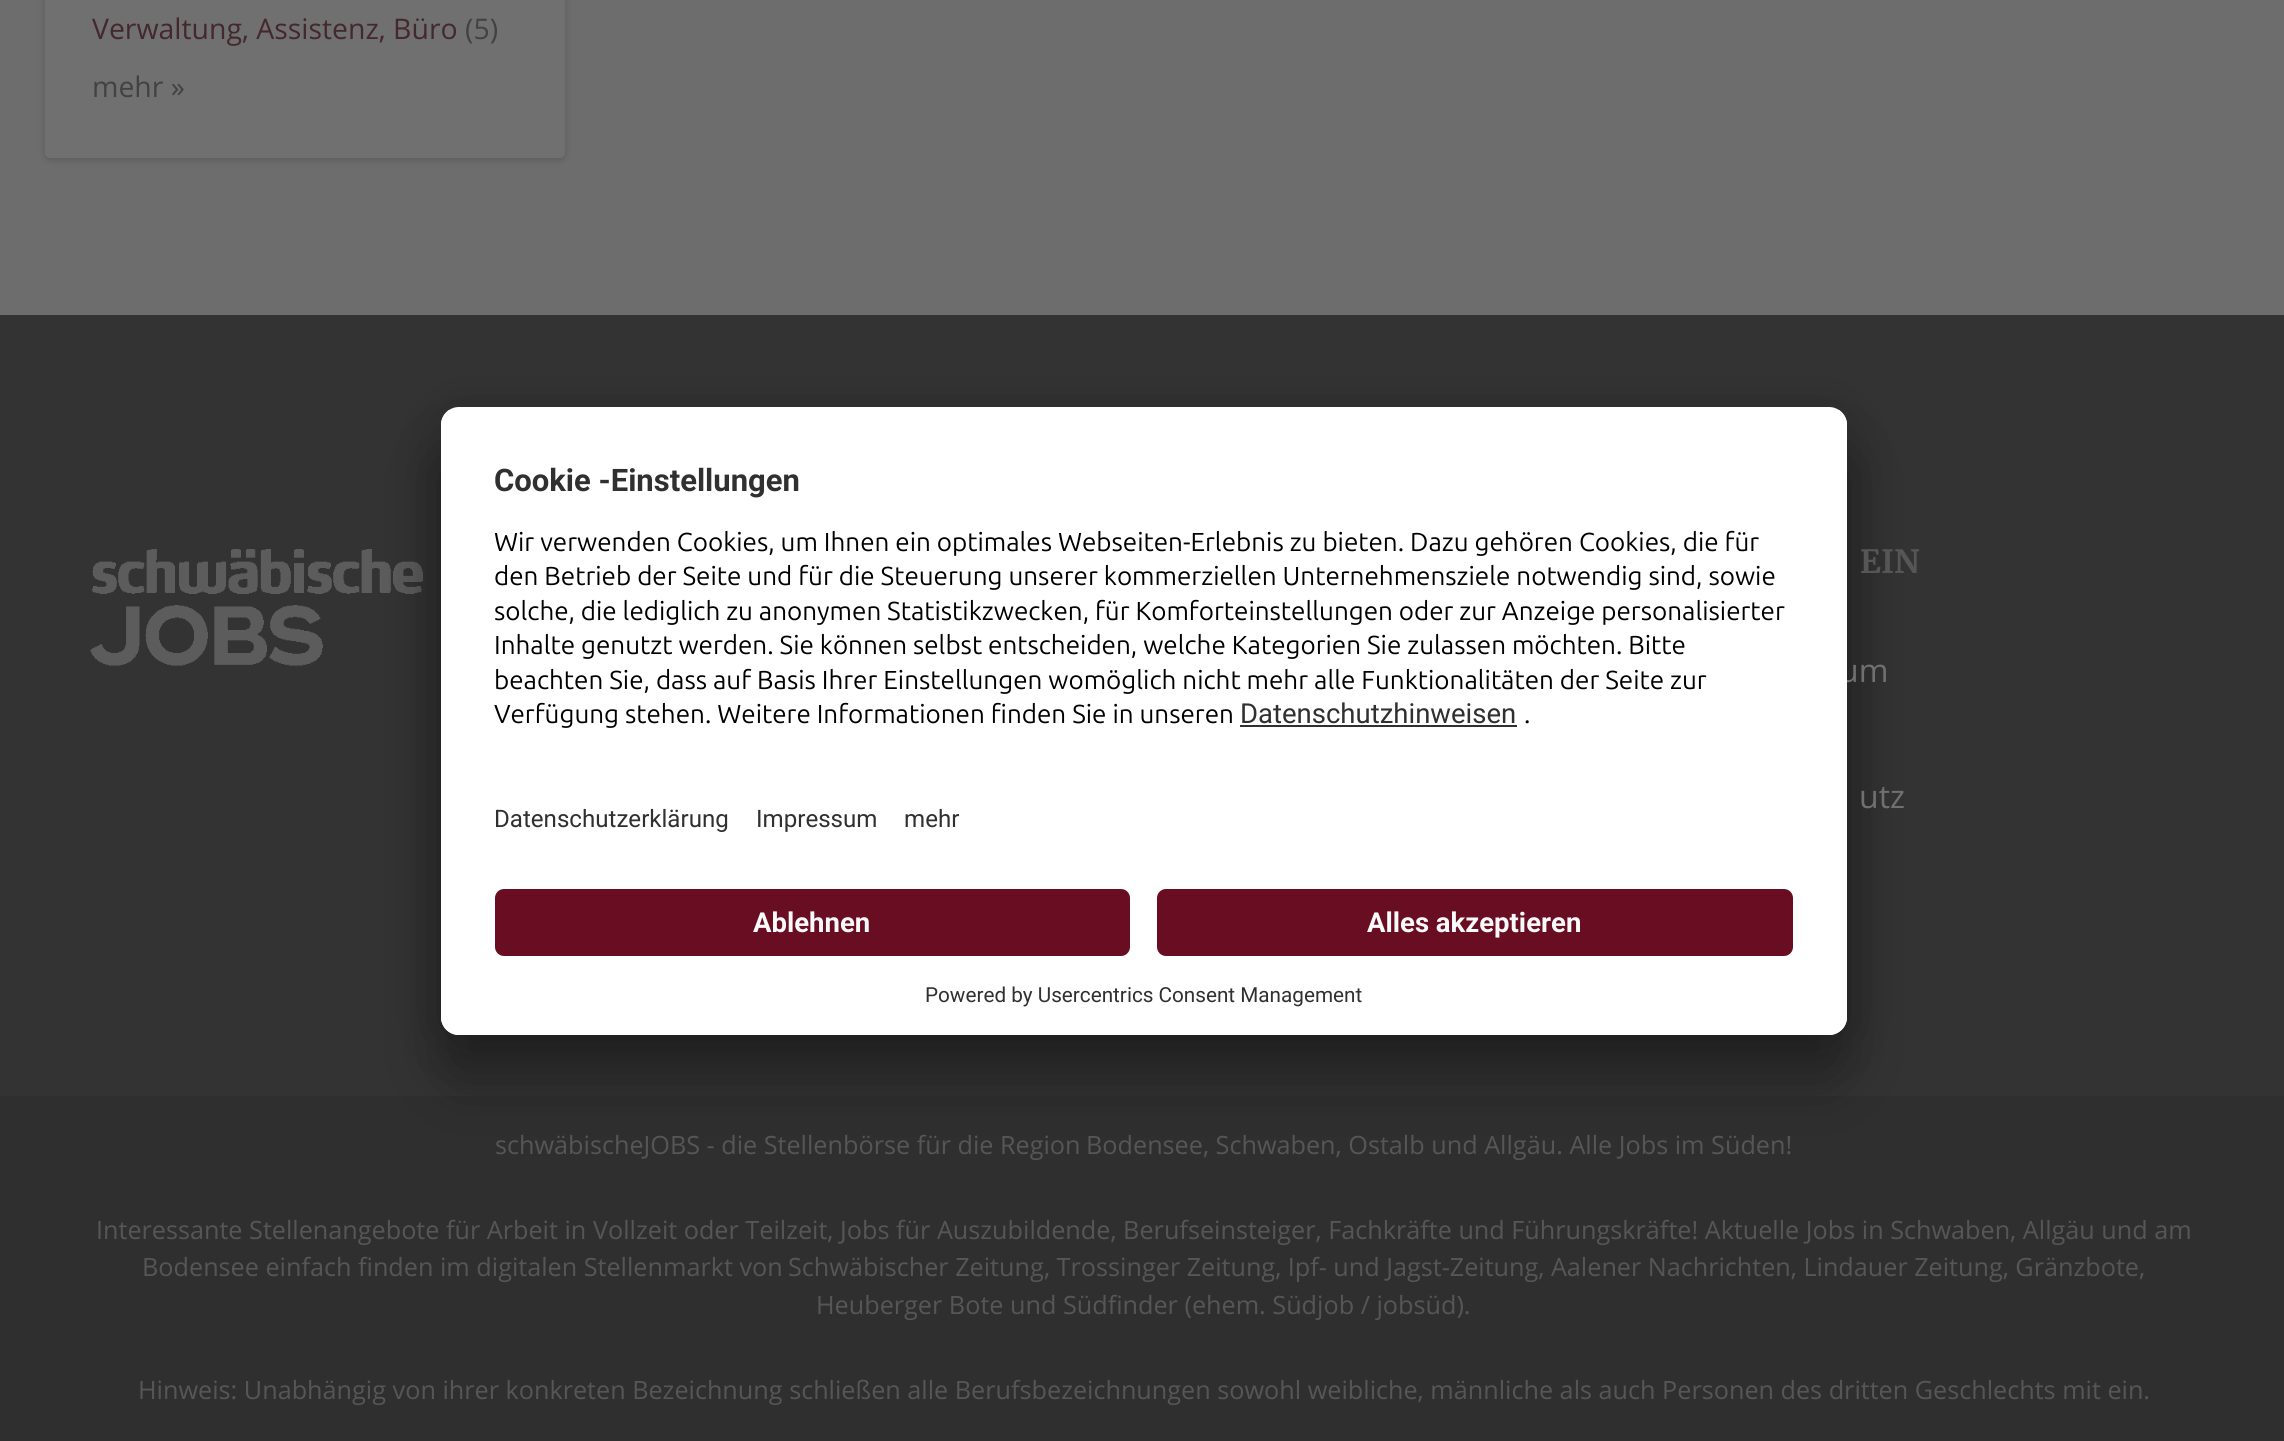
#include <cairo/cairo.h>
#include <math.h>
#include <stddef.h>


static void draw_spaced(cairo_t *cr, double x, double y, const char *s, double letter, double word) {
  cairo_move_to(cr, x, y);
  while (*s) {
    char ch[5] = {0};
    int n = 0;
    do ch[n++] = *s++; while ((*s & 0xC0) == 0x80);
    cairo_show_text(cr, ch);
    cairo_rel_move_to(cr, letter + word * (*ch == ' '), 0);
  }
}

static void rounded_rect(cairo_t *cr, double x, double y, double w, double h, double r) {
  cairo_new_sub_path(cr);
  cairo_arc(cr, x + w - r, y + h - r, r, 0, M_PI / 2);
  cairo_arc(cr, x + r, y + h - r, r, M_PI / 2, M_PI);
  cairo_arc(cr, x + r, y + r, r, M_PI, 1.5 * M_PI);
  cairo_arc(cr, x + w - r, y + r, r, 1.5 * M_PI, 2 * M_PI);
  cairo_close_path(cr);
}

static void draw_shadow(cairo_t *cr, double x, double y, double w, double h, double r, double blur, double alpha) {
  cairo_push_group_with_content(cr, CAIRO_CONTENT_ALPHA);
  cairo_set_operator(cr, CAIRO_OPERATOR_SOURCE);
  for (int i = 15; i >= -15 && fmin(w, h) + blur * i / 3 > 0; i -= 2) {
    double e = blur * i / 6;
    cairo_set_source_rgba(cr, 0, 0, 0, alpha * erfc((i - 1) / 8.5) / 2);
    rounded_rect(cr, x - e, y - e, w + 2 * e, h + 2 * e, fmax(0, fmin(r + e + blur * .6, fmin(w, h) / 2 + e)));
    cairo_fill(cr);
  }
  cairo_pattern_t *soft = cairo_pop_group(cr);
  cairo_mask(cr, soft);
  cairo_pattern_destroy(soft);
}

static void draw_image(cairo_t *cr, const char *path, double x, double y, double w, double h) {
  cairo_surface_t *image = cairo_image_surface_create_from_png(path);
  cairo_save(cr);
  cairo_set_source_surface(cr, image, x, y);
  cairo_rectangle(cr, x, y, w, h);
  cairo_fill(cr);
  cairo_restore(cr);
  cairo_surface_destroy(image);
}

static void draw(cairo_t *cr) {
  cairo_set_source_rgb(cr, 109 / 255.0, 109 / 255.0, 109 / 255.0);
  cairo_paint(cr);
  cairo_set_source_rgb(cr, 36 / 255.0, 36 / 255.0, 36 / 255.0);
  draw_shadow(cr, 45, -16, 520, 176, 5, 3.5, 0.25);
  cairo_set_source_rgb(cr, 112 / 255.0, 112 / 255.0, 112 / 255.0);
  rounded_rect(cr, 45, -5, 520, 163, 5);
  cairo_fill(cr);
  cairo_set_source_rgb(cr, 51 / 255.0, 51 / 255.0, 51 / 255.0);
  cairo_rectangle(cr, 0, 315, 2284, 781);
  cairo_fill(cr);
  draw_image(cr, "images/1.png", 90, 549, 333, 117);
  cairo_set_source_rgb(cr, 47 / 255.0, 47 / 255.0, 47 / 255.0);
  cairo_rectangle(cr, 0, 1096, 2284, 345);
  cairo_fill(cr);
  cairo_set_source_rgb(cr, 0, 0, 0);
  draw_shadow(cr, 441, 452, 1406, 628, 18, 31.5, 0.3);
  draw_shadow(cr, 441, 419, 1406, 627, 18, 29, 0.22);
  cairo_select_font_face(cr, "Open Sans", CAIRO_FONT_SLANT_NORMAL, CAIRO_FONT_WEIGHT_NORMAL);
  cairo_set_font_size(cr, 28.4);
  cairo_set_source_rgb(cr, 67 / 255.0, 40 / 255.0, 46 / 255.0);
  cairo_move_to(cr, 92, 39);
  cairo_show_text(cr, "Verwaltung, Assistenz, Büro");
  cairo_set_source_rgb(cr, 66 / 255.0, 66 / 255.0, 66 / 255.0);
  cairo_move_to(cr, 465, 39);
  cairo_show_text(cr, "(5)");
  cairo_move_to(cr, 92, 97);
  cairo_show_text(cr, "mehr »");
  cairo_select_font_face(cr, "Merriweather", CAIRO_FONT_SLANT_NORMAL, CAIRO_FONT_WEIGHT_BOLD);
  cairo_set_font_size(cr, 32);
  cairo_set_source_rgb(cr, 86 / 255.0, 86 / 255.0, 86 / 255.0);
  cairo_move_to(cr, 1860, 573);
  cairo_show_text(cr, "EIN");
  cairo_select_font_face(cr, "Open Sans", CAIRO_FONT_SLANT_NORMAL, CAIRO_FONT_WEIGHT_NORMAL);
  cairo_set_source_rgb(cr, 112 / 255.0, 112 / 255.0, 112 / 255.0);
  cairo_move_to(cr, 1839, 682);
  cairo_show_text(cr, "um");
  cairo_move_to(cr, 1859, 808);
  cairo_show_text(cr, "utz");
  cairo_set_font_size(cr, 25.2);
  cairo_set_source_rgb(cr, 86 / 255.0, 86 / 255.0, 86 / 255.0);
  cairo_move_to(cr, 495, 1154);
  cairo_show_text(cr, "schwäbischeJOBS - die Stellenbörse für die Region");
  cairo_move_to(cr, 1086, 1154);
  cairo_show_text(cr, "Bodensee, Schwaben, Ostalb und Allgäu. Alle Jobs im Süden!");
  cairo_move_to(cr, 96, 1239);
  cairo_show_text(cr, "Interessante Stellenangebote für Arbeit in");
  cairo_move_to(cr, 593, 1239);
  cairo_show_text(cr, "Vollzeit oder Teilzeit, Jobs für Auszubildende, Berufseinsteiger, Fachkräfte und Führungskräfte! Aktuelle Jobs in Schwaben, Allgäu und am");
  cairo_move_to(cr, 142, 1276);
  cairo_show_text(cr, "Bodensee einfach finden im digitalen Stellenmarkt von");
  cairo_move_to(cr, 788, 1276);
  cairo_show_text(cr, "Schwäbischer Zeitung");
  draw_spaced(cr, 1044, 1276, ", Trossinger Zeitung, Ipf- und Jagst-Zeitung, Aalener Nachrichten, Lindauer Zeitung, Gränzbote,", 0, -0.1);
  cairo_move_to(cr, 816, 1314);
  cairo_show_text(cr, "Heuberger Bote und Südfinder (ehem. Südjob / jobsüd).");
  cairo_move_to(cr, 138, 1399);
  cairo_show_text(cr, "Hinweis: Unabhängig von ihrer konkreten Bezeichnung schließen alle Berufsbezeichnungen sowohl weibliche, männliche als auch Personen des dritten Geschlechts mit ein.");
  cairo_set_source_rgb(cr, 1, 1, 1);
  rounded_rect(cr, 441, 407, 1406, 628, 18);
  cairo_fill(cr);
  cairo_save(cr);
  rounded_rect(cr, 441, 407, 1406, 628, 18);
  cairo_clip(cr);
  cairo_new_path(cr);
  cairo_move_to(cr, 459, 407);
  cairo_line_to(cr, 1829, 407);
  cairo_curve_to(cr, 1839, 407, 1847, 415, 1847, 425);
  cairo_line_to(cr, 1847, 871);
  cairo_line_to(cr, 441, 871);
  cairo_line_to(cr, 441, 425);
  cairo_curve_to(cr, 441, 415, 449, 407, 459, 407);
  cairo_close_path(cr);
  cairo_clip(cr);
  cairo_rectangle(cr, 441, 410, 1406, 461);
  cairo_fill(cr);
  cairo_restore(cr);
  cairo_select_font_face(cr, "Roboto", CAIRO_FONT_SLANT_NORMAL, CAIRO_FONT_WEIGHT_BOLD);
  cairo_set_font_size(cr, 31);
  cairo_set_source_rgb(cr, 48 / 255.0, 48 / 255.0, 48 / 255.0);
  cairo_move_to(cr, 494, 491);
  cairo_show_text(cr, "Cookie -Einstellungen");
  cairo_select_font_face(cr, "Ubuntu", CAIRO_FONT_SLANT_NORMAL, CAIRO_FONT_WEIGHT_NORMAL);
  cairo_set_font_size(cr, 26);
  cairo_set_source_rgb(cr, 0, 0, 0);
  cairo_move_to(cr, 494, 551);
  cairo_show_text(cr, "Wir verwenden Cookies, um Ihnen ein optimales Webseiten-Erlebnis zu bieten. Dazu gehören Cookies, die für");
  cairo_move_to(cr, 494, 585);
  cairo_show_text(cr, "den Betrieb der Seite und für die Steuerung unserer kommerziellen Unternehmensziele notwendig sind, sowie");
  draw_spaced(cr, 494, 620, "solche, die lediglich zu anonymen Statistikzwecken, für Komforteinstellungen oder zur Anzeige personalisierter", 0, -0.1);
  cairo_move_to(cr, 494, 654);
  cairo_show_text(cr, "Inhalte genutzt werden. Sie können selbst entscheiden, welche Kategorien Sie zulassen möchten. Bitte");
  cairo_move_to(cr, 494, 689);
  cairo_show_text(cr, "beachten Sie, dass auf Basis Ihrer Einstellungen womöglich nicht mehr alle Funktionalitäten der Seite zur");
  cairo_move_to(cr, 494, 723);
  cairo_show_text(cr, "Verfügung stehen. Weitere Informationen finden Sie in unseren");
  cairo_select_font_face(cr, "Roboto", CAIRO_FONT_SLANT_NORMAL, CAIRO_FONT_WEIGHT_NORMAL);
  cairo_set_font_size(cr, 27.5);
  cairo_set_source_rgb(cr, 48 / 255.0, 48 / 255.0, 48 / 255.0);
  cairo_move_to(cr, 1240, 723);
  cairo_show_text(cr, "Datenschutzhinweisen");
  cairo_rectangle(cr, 1240, 725, 277, 2);
  cairo_fill(cr);
  cairo_select_font_face(cr, "Ubuntu", CAIRO_FONT_SLANT_NORMAL, CAIRO_FONT_WEIGHT_NORMAL);
  cairo_set_font_size(cr, 26);
  cairo_set_source_rgb(cr, 0, 0, 0);
  cairo_move_to(cr, 1524, 723);
  cairo_show_text(cr, ".");
  cairo_select_font_face(cr, "Roboto", CAIRO_FONT_SLANT_NORMAL, CAIRO_FONT_WEIGHT_NORMAL);
  cairo_set_font_size(cr, 24.1);
  cairo_set_source_rgb(cr, 48 / 255.0, 48 / 255.0, 48 / 255.0);
  cairo_move_to(cr, 494, 827);
  cairo_show_text(cr, "Datenschutzerklärung");
  cairo_move_to(cr, 756, 827);
  cairo_show_text(cr, "Impressum");
  cairo_move_to(cr, 904, 827);
  cairo_show_text(cr, "mehr");
  cairo_set_source_rgb(cr, 1, 1, 1);
  cairo_new_path(cr);
  cairo_move_to(cr, 441, 871);
  cairo_line_to(cr, 1847, 871);
  cairo_line_to(cr, 1847, 1017);
  cairo_curve_to(cr, 1847, 1027, 1839, 1035, 1829, 1035);
  cairo_line_to(cr, 459, 1035);
  cairo_curve_to(cr, 449, 1035, 441, 1027, 441, 1017);
  cairo_close_path(cr);
  cairo_fill(cr);
  cairo_set_source_rgb(cr, 105 / 255.0, 13 / 255.0, 35 / 255.0);
  rounded_rect(cr, 495, 889, 635, 67, 9);
  cairo_fill(cr);
  cairo_select_font_face(cr, "Roboto", CAIRO_FONT_SLANT_NORMAL, CAIRO_FONT_WEIGHT_BOLD);
  cairo_set_font_size(cr, 27.5);
  cairo_set_source_rgb(cr, 250 / 255.0, 250 / 255.0, 250 / 255.0);
  cairo_move_to(cr, 753, 932);
  cairo_show_text(cr, "Ablehnen");
  cairo_set_source_rgb(cr, 105 / 255.0, 13 / 255.0, 35 / 255.0);
  rounded_rect(cr, 1157, 889, 636, 67, 9);
  cairo_fill(cr);
  cairo_set_source_rgb(cr, 250 / 255.0, 250 / 255.0, 250 / 255.0);
  cairo_move_to(cr, 1367, 932);
  cairo_show_text(cr, "Alles akzeptieren");
  cairo_select_font_face(cr, "Roboto", CAIRO_FONT_SLANT_NORMAL, CAIRO_FONT_WEIGHT_NORMAL);
  cairo_set_font_size(cr, 20.7);
  cairo_set_source_rgb(cr, 48 / 255.0, 48 / 255.0, 48 / 255.0);
  cairo_move_to(cr, 925, 1002);
  cairo_show_text(cr, "Powered by Usercentrics Consent Management");
}

int main(void) {
  cairo_surface_t *surface = cairo_image_surface_create(CAIRO_FORMAT_RGB24, 2284, 1441);
  cairo_t *cr = cairo_create(surface);
  cairo_font_options_t *options = cairo_font_options_create();
  cairo_font_options_set_hint_metrics(options, CAIRO_HINT_METRICS_OFF);
  cairo_font_options_set_hint_style(options, CAIRO_HINT_STYLE_NONE);
  cairo_set_font_options(cr, options);
  cairo_set_miter_limit(cr, 4);
  draw(cr);
  cairo_surface_write_to_png(surface, "out.png");
  cairo_font_options_destroy(options);
  cairo_destroy(cr);
  cairo_surface_destroy(surface);
  return 0;
}
